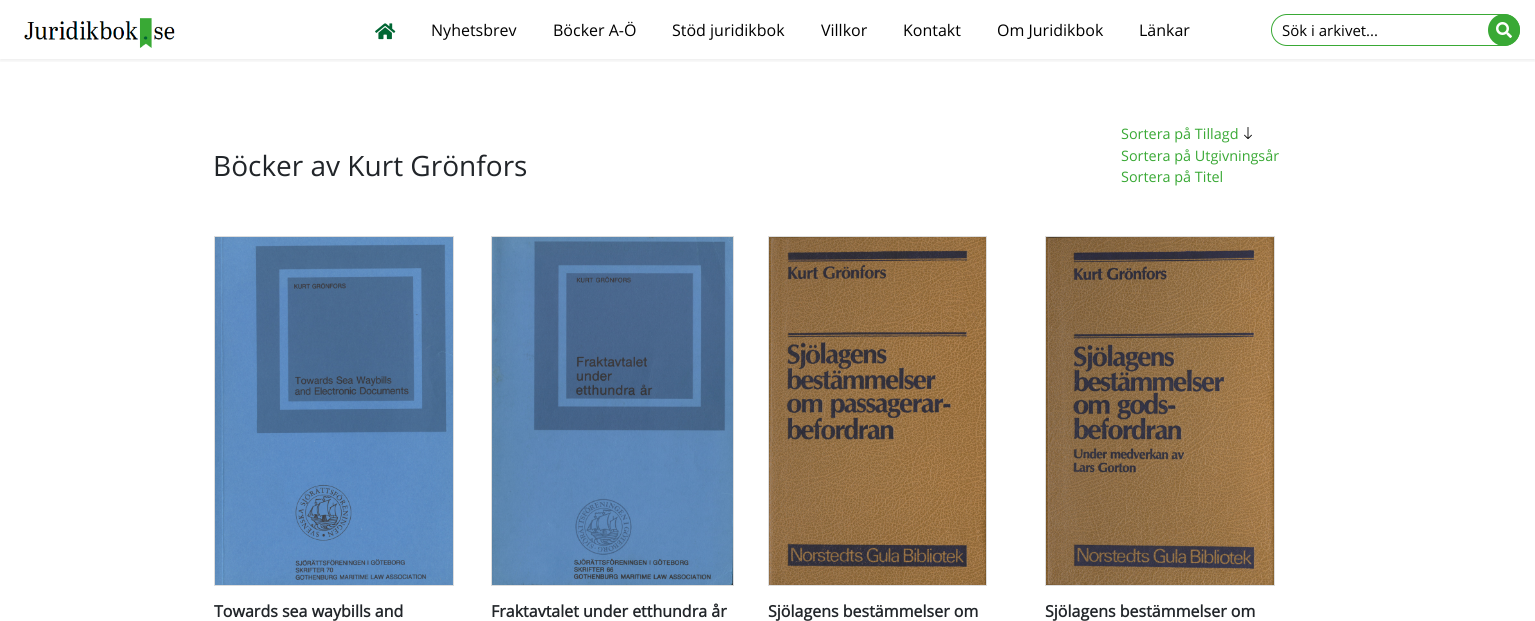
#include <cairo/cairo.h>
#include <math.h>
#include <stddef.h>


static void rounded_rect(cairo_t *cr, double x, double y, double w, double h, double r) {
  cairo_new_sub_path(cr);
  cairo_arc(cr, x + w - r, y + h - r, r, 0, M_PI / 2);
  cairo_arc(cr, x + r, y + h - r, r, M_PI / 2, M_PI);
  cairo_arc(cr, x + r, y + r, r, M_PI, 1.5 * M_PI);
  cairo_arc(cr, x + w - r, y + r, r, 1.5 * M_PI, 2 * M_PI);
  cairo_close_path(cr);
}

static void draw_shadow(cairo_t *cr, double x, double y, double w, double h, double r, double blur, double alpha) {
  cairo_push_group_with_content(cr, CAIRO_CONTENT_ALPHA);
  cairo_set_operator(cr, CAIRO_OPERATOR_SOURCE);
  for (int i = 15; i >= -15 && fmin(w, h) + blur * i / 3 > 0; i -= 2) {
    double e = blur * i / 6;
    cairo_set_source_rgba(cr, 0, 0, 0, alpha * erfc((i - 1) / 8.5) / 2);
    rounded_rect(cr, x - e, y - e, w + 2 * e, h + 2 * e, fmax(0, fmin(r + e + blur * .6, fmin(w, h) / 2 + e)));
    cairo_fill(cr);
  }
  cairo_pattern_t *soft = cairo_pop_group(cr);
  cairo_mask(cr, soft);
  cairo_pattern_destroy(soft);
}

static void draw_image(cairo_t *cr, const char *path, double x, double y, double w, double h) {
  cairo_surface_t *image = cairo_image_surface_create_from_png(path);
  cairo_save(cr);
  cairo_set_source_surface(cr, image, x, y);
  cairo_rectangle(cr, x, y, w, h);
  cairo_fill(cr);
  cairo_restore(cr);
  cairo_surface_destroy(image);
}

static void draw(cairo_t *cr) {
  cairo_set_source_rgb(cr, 1, 1, 1);
  cairo_paint(cr);
  cairo_save(cr);
  cairo_rectangle(cr, 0, 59, 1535, 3);
  cairo_clip(cr);
  cairo_set_source_rgb(cr, 0, 0, 0);
  draw_shadow(cr, 0, 2, 1535, 59, 0, 2, 0.07);
  cairo_restore(cr);
  draw_image(cr, "images/1.png", 24, 18, 151, 30);
  draw_image(cr, "images/2.png", 375, 23, 21, 17);
  rounded_rect(cr, 1271.5, 14.5, 248, 31, 15.5);
  cairo_set_source_rgb(cr, 57 / 255.0, 169 / 255.0, 53 / 255.0);
  cairo_set_line_width(cr, 1);
  cairo_stroke(cr);
  cairo_arc(cr, 1504, 30, 16, 0, 2 * M_PI);
  cairo_fill(cr);
  draw_image(cr, "images/3.png", 1496, 22, 16, 16);
  draw_image(cr, "images/4.png", 1244, 127, 8, 12);
  cairo_rectangle(cr, 214.5, 236.5, 239, 349);
  cairo_set_source_rgb(cr, 221 / 255.0, 221 / 255.0, 221 / 255.0);
  cairo_stroke(cr);
  draw_image(cr, "images/5.png", 215, 237, 238, 348);
  cairo_rectangle(cr, 491.5, 236.5, 242, 349);
  cairo_stroke(cr);
  draw_image(cr, "images/6.png", 492, 237, 241, 348);
  cairo_rectangle(cr, 768.5, 236.5, 218, 349);
  cairo_stroke(cr);
  draw_image(cr, "images/7.png", 769, 237, 217, 348);
  cairo_rectangle(cr, 1045.5, 236.5, 229, 349);
  cairo_stroke(cr);
  draw_image(cr, "images/8.png", 1046, 237, 228, 348);
  cairo_select_font_face(cr, "Open Sans", CAIRO_FONT_SLANT_NORMAL, CAIRO_FONT_WEIGHT_NORMAL);
  cairo_set_font_size(cr, 16);
  cairo_set_source_rgb(cr, 0, 0, 0);
  cairo_move_to(cr, 431, 36);
  cairo_show_text(cr, "Nyhetsbrev");
  cairo_move_to(cr, 553, 36);
  cairo_show_text(cr, "Böcker A-Ö");
  cairo_move_to(cr, 672, 36);
  cairo_show_text(cr, "Stöd juridikbok");
  cairo_move_to(cr, 821, 36);
  cairo_show_text(cr, "Villkor");
  cairo_move_to(cr, 903, 36);
  cairo_show_text(cr, "Kontakt");
  cairo_move_to(cr, 997, 36);
  cairo_show_text(cr, "Om Juridikbok");
  cairo_move_to(cr, 1139, 36);
  cairo_show_text(cr, "Länkar");
  cairo_set_font_size(cr, 15);
  cairo_move_to(cr, 1282, 36);
  cairo_show_text(cr, "Sök i arkivet...");
  cairo_set_font_size(cr, 28);
  cairo_set_source_rgb(cr, 33 / 255.0, 37 / 255.0, 41 / 255.0);
  cairo_move_to(cr, 213, 176);
  cairo_show_text(cr, "Böcker av Kurt Grönfors");
  cairo_set_font_size(cr, 14.4);
  cairo_set_source_rgb(cr, 57 / 255.0, 169 / 255.0, 53 / 255.0);
  cairo_move_to(cr, 1121, 139);
  cairo_show_text(cr, "Sortera på Tillagd");
  cairo_move_to(cr, 1121, 161);
  cairo_show_text(cr, "Sortera på Utgivningsår");
  cairo_move_to(cr, 1121, 182);
  cairo_show_text(cr, "Sortera på Titel");
  cairo_select_font_face(cr, "Open Sans", CAIRO_FONT_SLANT_NORMAL, CAIRO_FONT_WEIGHT_BOLD);
  cairo_set_font_size(cr, 16);
  cairo_set_source_rgb(cr, 33 / 255.0, 37 / 255.0, 41 / 255.0);
  cairo_move_to(cr, 214, 617);
  cairo_show_text(cr, "Towards sea waybills and");
  cairo_move_to(cr, 491, 617);
  cairo_show_text(cr, "Fraktavtalet under etthundra år");
  cairo_move_to(cr, 768, 617);
  cairo_show_text(cr, "Sjölagens bestämmelser om");
  cairo_move_to(cr, 1045, 617);
  cairo_show_text(cr, "Sjölagens bestämmelser om");
}

int main(void) {
  cairo_surface_t *surface = cairo_image_surface_create(CAIRO_FORMAT_RGB24, 1535, 621);
  cairo_t *cr = cairo_create(surface);
  cairo_font_options_t *options = cairo_font_options_create();
  cairo_font_options_set_hint_metrics(options, CAIRO_HINT_METRICS_OFF);
  cairo_font_options_set_hint_style(options, CAIRO_HINT_STYLE_NONE);
  cairo_set_font_options(cr, options);
  cairo_set_miter_limit(cr, 4);
  draw(cr);
  cairo_surface_write_to_png(surface, "out.png");
  cairo_font_options_destroy(options);
  cairo_destroy(cr);
  cairo_surface_destroy(surface);
  return 0;
}
